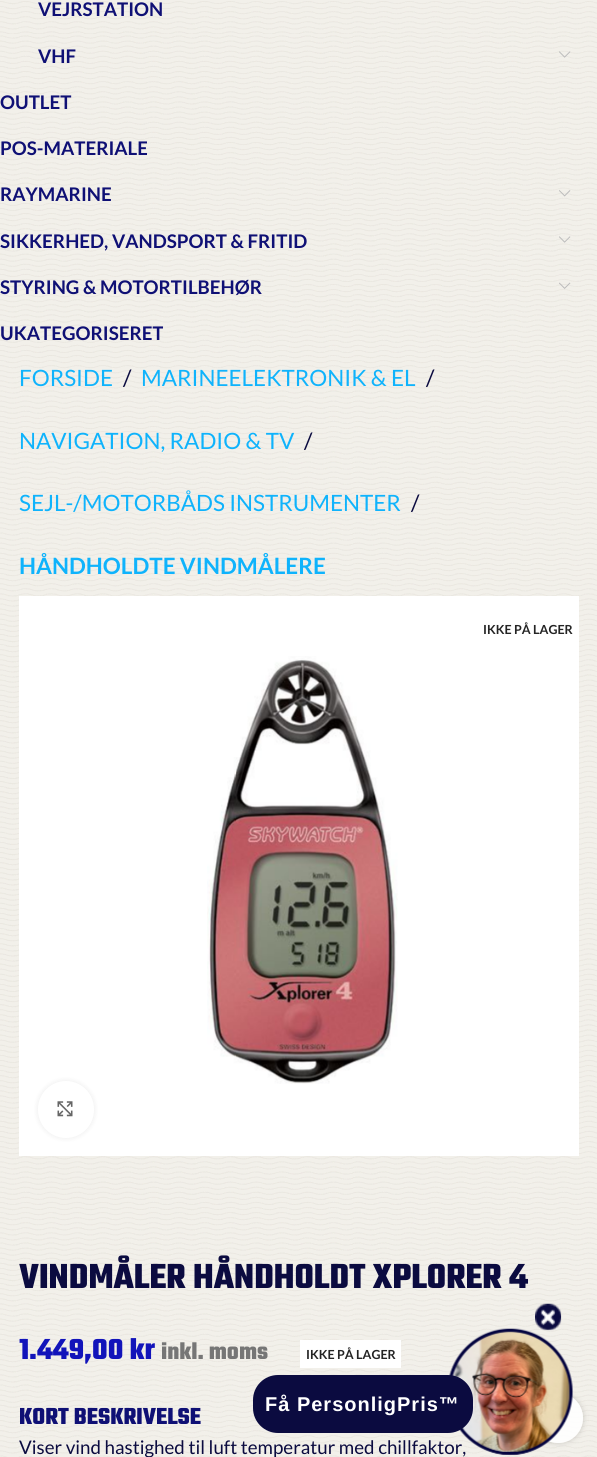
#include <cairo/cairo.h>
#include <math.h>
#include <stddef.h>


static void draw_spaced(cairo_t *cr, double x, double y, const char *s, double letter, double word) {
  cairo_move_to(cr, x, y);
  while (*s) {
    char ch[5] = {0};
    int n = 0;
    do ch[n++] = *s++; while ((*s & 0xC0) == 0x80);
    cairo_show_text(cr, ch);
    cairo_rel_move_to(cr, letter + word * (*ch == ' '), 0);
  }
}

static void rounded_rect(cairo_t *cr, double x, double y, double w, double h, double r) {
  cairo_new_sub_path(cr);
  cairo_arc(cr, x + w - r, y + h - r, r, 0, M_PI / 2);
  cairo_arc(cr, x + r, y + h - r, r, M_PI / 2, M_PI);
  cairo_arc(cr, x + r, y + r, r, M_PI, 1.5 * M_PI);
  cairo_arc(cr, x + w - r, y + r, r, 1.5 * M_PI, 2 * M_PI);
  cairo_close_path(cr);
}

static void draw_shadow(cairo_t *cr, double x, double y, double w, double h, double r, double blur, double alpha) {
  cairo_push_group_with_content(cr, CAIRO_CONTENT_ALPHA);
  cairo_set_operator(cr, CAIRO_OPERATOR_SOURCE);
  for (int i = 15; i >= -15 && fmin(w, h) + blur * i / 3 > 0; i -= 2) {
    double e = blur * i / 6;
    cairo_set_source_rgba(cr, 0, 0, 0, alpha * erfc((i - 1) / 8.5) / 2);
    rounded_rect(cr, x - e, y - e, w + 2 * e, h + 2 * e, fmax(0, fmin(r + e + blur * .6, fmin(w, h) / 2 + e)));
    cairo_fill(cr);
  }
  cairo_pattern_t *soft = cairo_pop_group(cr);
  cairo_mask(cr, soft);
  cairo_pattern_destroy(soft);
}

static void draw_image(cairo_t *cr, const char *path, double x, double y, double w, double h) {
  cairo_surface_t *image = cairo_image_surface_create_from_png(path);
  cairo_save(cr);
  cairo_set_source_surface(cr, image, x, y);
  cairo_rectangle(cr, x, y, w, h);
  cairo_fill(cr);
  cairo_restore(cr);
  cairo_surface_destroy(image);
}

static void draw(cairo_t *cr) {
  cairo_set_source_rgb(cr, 242 / 255.0, 240 / 255.0, 234 / 255.0);
  cairo_paint(cr);
  draw_image(cr, "images/1.png", 0, 1, 597, 1456);
  draw_image(cr, "images/2.png", 559, 51, 12, 7);
  draw_image(cr, "images/3.png", 559, 190, 12, 7);
  draw_image(cr, "images/4.png", 559, 236, 12, 7);
  draw_image(cr, "images/5.png", 559, 282, 12, 7);
  cairo_set_source_rgb(cr, 1, 1, 1);
  cairo_rectangle(cr, 19, 596, 560, 560);
  cairo_fill(cr);
  draw_image(cr, "images/6.png", 207, 656, 191, 428);
  cairo_set_source_rgb(cr, 0, 0, 0);
  draw_shadow(cr, 38, 1081, 56, 57, 28, 3, 0.08);
  cairo_set_source_rgb(cr, 1, 1, 1);
  rounded_rect(cr, 38, 1081, 56, 57, 28);
  cairo_fill(cr);
  cairo_new_path(cr);
  cairo_move_to(cr, 22, 1116.5);
  cairo_curve_to(cr, 18.5, 1113, 18.5, 1107, 22, 1103.5);
  cairo_set_line_width(cr, 1.2);
  cairo_stroke(cr);
  draw_image(cr, "images/7.png", 57, 1101, 16, 16);
  cairo_rectangle(cr, 300, 1340, 101, 28);
  cairo_fill(cr);
  cairo_save(cr);
  cairo_set_fill_rule(cr, CAIRO_FILL_RULE_EVEN_ODD);
  cairo_new_path(cr);
  cairo_move_to(cr, 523, 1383);
  cairo_line_to(cr, 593, 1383);
  cairo_line_to(cr, 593, 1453);
  cairo_line_to(cr, 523, 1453);
  cairo_close_path(cr);
  cairo_move_to(cr, 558, 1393);
  cairo_curve_to(cr, 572, 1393, 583, 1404, 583, 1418);
  cairo_curve_to(cr, 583, 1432, 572, 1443, 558, 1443);
  cairo_curve_to(cr, 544, 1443, 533, 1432, 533, 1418);
  cairo_curve_to(cr, 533, 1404, 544, 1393, 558, 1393);
  cairo_close_path(cr);
  cairo_clip(cr);
  cairo_set_source_rgb(cr, 0, 0, 0);
  draw_shadow(cr, 533, 1393, 50, 50, 25, 3, 0.17);
  cairo_restore(cr);
  cairo_set_source_rgba(cr, 1, 1, 1, 0.9);
  cairo_arc(cr, 558, 1418, 25, 0, 2 * M_PI);
  cairo_fill(cr);
  draw_image(cr, "images/8.png", 564, 1420, 1, 2);
  cairo_select_font_face(cr, "Lato", CAIRO_FONT_SLANT_NORMAL, CAIRO_FONT_WEIGHT_BOLD);
  cairo_set_font_size(cr, 18.75);
  cairo_set_source_rgb(cr, 15 / 255.0, 16 / 255.0, 117 / 255.0);
  cairo_move_to(cr, 38, 16);
  cairo_show_text(cr, "VEJRSTATION");
  cairo_move_to(cr, 38, 63);
  cairo_show_text(cr, "VHF");
  cairo_move_to(cr, 0, 109);
  cairo_show_text(cr, "OUTLET");
  cairo_move_to(cr, 0, 155);
  cairo_show_text(cr, "POS-MATERIALE");
  cairo_move_to(cr, 0, 201);
  cairo_show_text(cr, "RAYMARINE");
  cairo_move_to(cr, 0, 248);
  cairo_show_text(cr, "SIKKERHED, VANDSPORT & FRITID");
  cairo_move_to(cr, 0, 294);
  cairo_show_text(cr, "STYRING & MOTORTILBEHØR");
  cairo_move_to(cr, 0, 340);
  cairo_show_text(cr, "UKATEGORISERET");
  cairo_select_font_face(cr, "Lato", CAIRO_FONT_SLANT_NORMAL, CAIRO_FONT_WEIGHT_NORMAL);
  cairo_set_font_size(cr, 22.5);
  cairo_set_source_rgb(cr, 15 / 255.0, 179 / 255.0, 252 / 255.0);
  cairo_move_to(cr, 19, 386);
  cairo_show_text(cr, "FORSIDE");
  cairo_set_source_rgb(cr, 11 / 255.0, 11 / 255.0, 64 / 255.0);
  cairo_move_to(cr, 123, 386);
  cairo_show_text(cr, "/");
  cairo_set_source_rgb(cr, 15 / 255.0, 179 / 255.0, 252 / 255.0);
  cairo_move_to(cr, 141, 386);
  cairo_show_text(cr, "MARINEELEKTRONIK & EL");
  cairo_set_source_rgb(cr, 11 / 255.0, 11 / 255.0, 64 / 255.0);
  cairo_move_to(cr, 426, 386);
  cairo_show_text(cr, "/");
  cairo_set_source_rgb(cr, 15 / 255.0, 179 / 255.0, 252 / 255.0);
  cairo_move_to(cr, 19, 449);
  cairo_show_text(cr, "NAVIGATION, RADIO & TV");
  cairo_set_source_rgb(cr, 11 / 255.0, 11 / 255.0, 64 / 255.0);
  cairo_move_to(cr, 304, 449);
  cairo_show_text(cr, "/");
  cairo_set_source_rgb(cr, 15 / 255.0, 179 / 255.0, 252 / 255.0);
  cairo_move_to(cr, 19, 511);
  cairo_show_text(cr, "SEJL-/MOTORBÅDS INSTRUMENTER");
  cairo_set_source_rgb(cr, 11 / 255.0, 11 / 255.0, 64 / 255.0);
  cairo_move_to(cr, 411, 511);
  cairo_show_text(cr, "/");
  cairo_select_font_face(cr, "Lato", CAIRO_FONT_SLANT_NORMAL, CAIRO_FONT_WEIGHT_BOLD);
  cairo_set_source_rgb(cr, 15 / 255.0, 179 / 255.0, 252 / 255.0);
  cairo_move_to(cr, 19, 574);
  cairo_show_text(cr, "HÅNDHOLDTE VINDMÅLERE");
  cairo_set_font_size(cr, 12.5);
  cairo_set_source_rgb(cr, 36 / 255.0, 36 / 255.0, 36 / 255.0);
  cairo_move_to(cr, 483, 634);
  cairo_show_text(cr, "IKKE PÅ LAGER");
  cairo_select_font_face(cr, "Teko", CAIRO_FONT_SLANT_NORMAL, CAIRO_FONT_WEIGHT_BOLD);
  cairo_set_font_size(cr, 37.5);
  cairo_set_source_rgb(cr, 11 / 255.0, 11 / 255.0, 64 / 255.0);
  cairo_move_to(cr, 19, 1288);
  cairo_show_text(cr, "VINDMÅLER HÅNDHOLDT XPLORER 4");
  cairo_set_font_size(cr, 31.25);
  cairo_set_source_rgb(cr, 18 / 255.0, 20 / 255.0, 186 / 255.0);
  cairo_move_to(cr, 19, 1359);
  cairo_show_text(cr, "1.449,00 kr");
  cairo_set_font_size(cr, 25);
  cairo_set_source_rgb(cr, 118 / 255.0, 118 / 255.0, 118 / 255.0);
  cairo_move_to(cr, 161, 1359);
  cairo_show_text(cr, "inkl. moms");
  cairo_select_font_face(cr, "Lato", CAIRO_FONT_SLANT_NORMAL, CAIRO_FONT_WEIGHT_BOLD);
  cairo_set_font_size(cr, 12.5);
  cairo_set_source_rgb(cr, 36 / 255.0, 36 / 255.0, 36 / 255.0);
  cairo_move_to(cr, 306, 1359);
  cairo_show_text(cr, "IKKE PÅ LAGER");
  cairo_select_font_face(cr, "Teko", CAIRO_FONT_SLANT_NORMAL, CAIRO_FONT_WEIGHT_BOLD);
  cairo_set_font_size(cr, 25);
  cairo_set_source_rgb(cr, 15 / 255.0, 16 / 255.0, 117 / 255.0);
  cairo_move_to(cr, 19, 1424);
  cairo_show_text(cr, "KORT BESKRIVELSE");
  cairo_select_font_face(cr, "Lato", CAIRO_FONT_SLANT_NORMAL, CAIRO_FONT_WEIGHT_NORMAL);
  cairo_set_font_size(cr, 18.75);
  cairo_set_source_rgb(cr, 11 / 255.0, 11 / 255.0, 64 / 255.0);
  cairo_move_to(cr, 19, 1454);
  cairo_show_text(cr, "Viser vind hastighed til luft temperatur med chillfaktor,");
  draw_image(cr, "images/10.png", 449, 1328, 124, 127);
  rounded_rect(cr, 253, 1375, 220, 58, 25);
  cairo_fill(cr);
  cairo_select_font_face(cr, "Liberation Sans", CAIRO_FONT_SLANT_NORMAL, CAIRO_FONT_WEIGHT_BOLD);
  cairo_set_font_size(cr, 20);
  cairo_set_source_rgb(cr, 1, 1, 1);
  draw_spaced(cr, 265, 1411, "Få PersonligPris™", 1, 0);
  draw_image(cr, "images/9.png", 535, 1303, 27, 28);
}

int main(void) {
  cairo_surface_t *surface = cairo_image_surface_create(CAIRO_FORMAT_RGB24, 597, 1457);
  cairo_t *cr = cairo_create(surface);
  cairo_font_options_t *options = cairo_font_options_create();
  cairo_font_options_set_hint_metrics(options, CAIRO_HINT_METRICS_OFF);
  cairo_font_options_set_hint_style(options, CAIRO_HINT_STYLE_NONE);
  cairo_set_font_options(cr, options);
  cairo_set_miter_limit(cr, 4);
  draw(cr);
  cairo_surface_write_to_png(surface, "out.png");
  cairo_font_options_destroy(options);
  cairo_destroy(cr);
  cairo_surface_destroy(surface);
  return 0;
}
